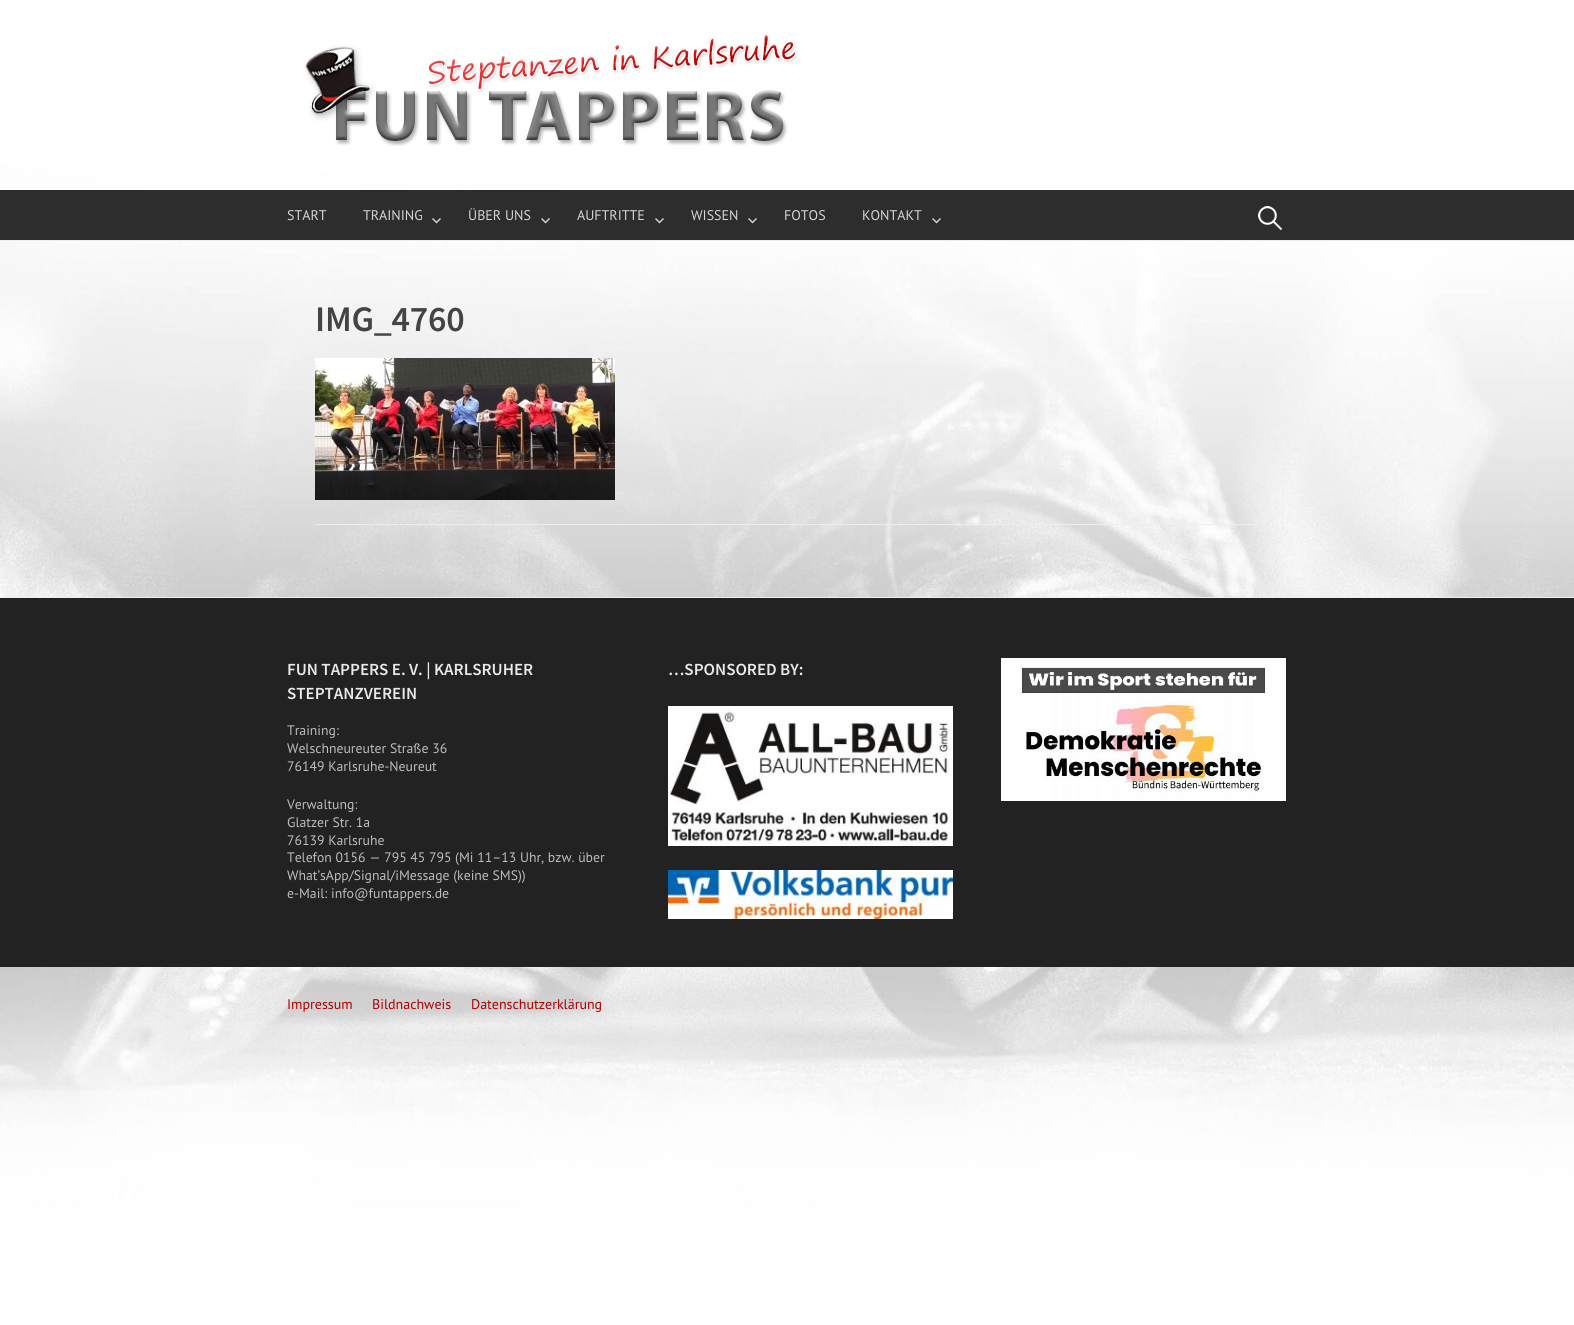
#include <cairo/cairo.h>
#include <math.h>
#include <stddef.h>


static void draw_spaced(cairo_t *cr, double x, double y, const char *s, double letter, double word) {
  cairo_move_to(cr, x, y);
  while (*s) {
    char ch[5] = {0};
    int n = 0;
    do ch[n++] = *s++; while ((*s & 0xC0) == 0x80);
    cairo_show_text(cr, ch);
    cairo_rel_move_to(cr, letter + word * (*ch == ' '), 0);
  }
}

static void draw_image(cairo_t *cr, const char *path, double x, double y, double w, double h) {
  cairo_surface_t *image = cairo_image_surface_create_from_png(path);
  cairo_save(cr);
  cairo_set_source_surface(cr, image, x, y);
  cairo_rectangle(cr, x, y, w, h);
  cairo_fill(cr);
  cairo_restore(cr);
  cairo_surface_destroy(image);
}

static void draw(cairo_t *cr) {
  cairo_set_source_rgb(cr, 1, 1, 1);
  cairo_paint(cr);
  draw_image(cr, "images/1.png", 0, 0, 1574, 1325);
  cairo_set_source_rgb(cr, 238 / 255.0, 238 / 255.0, 238 / 255.0);
  cairo_rectangle(cr, 0, 240, 1574, 1);
  cairo_fill(cr);
  draw_image(cr, "images/2.png", 304, 35, 494, 111);
  cairo_set_source_rgb(cr, 45 / 255.0, 45 / 255.0, 45 / 255.0);
  cairo_rectangle(cr, 0, 190, 1574, 50);
  cairo_fill(cr);
  draw_image(cr, "images/3.png", 432, 218, 9, 6);
  draw_image(cr, "images/3.png", 541, 218, 9, 6);
  draw_image(cr, "images/3.png", 655, 218, 9, 6);
  draw_image(cr, "images/3.png", 748, 218, 9, 6);
  draw_image(cr, "images/3.png", 932, 218, 9, 6);
  draw_image(cr, "images/4.png", 1258, 206, 24, 24);
  cairo_set_source_rgb(cr, 238 / 255.0, 238 / 255.0, 238 / 255.0);
  cairo_rectangle(cr, 315, 524, 944, 1);
  cairo_fill(cr);
  draw_image(cr, "images/5.png", 315, 358, 300, 142);
  cairo_rectangle(cr, 0, 597, 1574, 1);
  cairo_fill(cr);
  cairo_set_source_rgb(cr, 34 / 255.0, 34 / 255.0, 34 / 255.0);
  cairo_rectangle(cr, 0, 598, 1574, 369);
  cairo_fill(cr);
  draw_image(cr, "images/6.png", 668, 706, 285, 140);
  draw_image(cr, "images/7.png", 668, 870, 285, 49);
  draw_image(cr, "images/8.png", 1001, 658, 285, 143);
  cairo_select_font_face(cr, "PT Sans", CAIRO_FONT_SLANT_NORMAL, CAIRO_FONT_WEIGHT_NORMAL);
  cairo_set_font_size(cr, 14);
  cairo_set_source_rgb(cr, 213 / 255.0, 213 / 255.0, 213 / 255.0);
  cairo_move_to(cr, 287, 220);
  cairo_show_text(cr, "START");
  cairo_move_to(cr, 363, 220);
  cairo_show_text(cr, "TRAINING");
  cairo_move_to(cr, 468, 220);
  cairo_show_text(cr, "ÜBER UNS");
  cairo_move_to(cr, 577, 220);
  cairo_show_text(cr, "AUFTRITTE");
  cairo_move_to(cr, 691, 220);
  cairo_show_text(cr, "WISSEN");
  cairo_move_to(cr, 784, 220);
  cairo_show_text(cr, "FOTOS");
  cairo_move_to(cr, 862, 220);
  cairo_show_text(cr, "KONTAKT");
  cairo_select_font_face(cr, "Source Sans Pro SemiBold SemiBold", CAIRO_FONT_SLANT_NORMAL, CAIRO_FONT_WEIGHT_NORMAL);
  cairo_set_font_size(cr, 36);
  cairo_set_source_rgb(cr, 68 / 255.0, 68 / 255.0, 68 / 255.0);
  draw_spaced(cr, 315, 331, "IMG_4760", -0.25, 0);
  cairo_set_font_size(cr, 17);
  cairo_set_source_rgb(cr, 233 / 255.0, 233 / 255.0, 233 / 255.0);
  cairo_move_to(cr, 287, 675);
  cairo_show_text(cr, "FUN TAPPERS E. V. | KARLSRUHER");
  cairo_move_to(cr, 287, 699);
  cairo_show_text(cr, "STEPTANZVEREIN");
  cairo_select_font_face(cr, "PT Sans", CAIRO_FONT_SLANT_NORMAL, CAIRO_FONT_WEIGHT_NORMAL);
  cairo_set_font_size(cr, 13.75);
  cairo_set_source_rgb(cr, 189 / 255.0, 189 / 255.0, 189 / 255.0);
  cairo_move_to(cr, 287, 735);
  cairo_show_text(cr, "Training:");
  cairo_move_to(cr, 287, 753);
  cairo_show_text(cr, "Welschneureuter Straße 36");
  cairo_move_to(cr, 287, 771);
  cairo_show_text(cr, "76149 Karlsruhe-Neureut");
  cairo_move_to(cr, 287, 809);
  cairo_show_text(cr, "Verwaltung:");
  cairo_move_to(cr, 287, 827);
  cairo_show_text(cr, "Glatzer Str. 1a");
  cairo_move_to(cr, 287, 845);
  cairo_show_text(cr, "76139 Karlsruhe");
  cairo_move_to(cr, 287, 862);
  cairo_show_text(cr, "Telefon 0156 — 795 45 795 (Mi 11–13 Uhr, bzw. über");
  cairo_move_to(cr, 287, 880);
  cairo_show_text(cr, "What’sApp/Signal/iMessage (keine SMS))");
  cairo_move_to(cr, 287, 898);
  cairo_show_text(cr, "e‑Mail: info@funtappers.de");
  cairo_select_font_face(cr, "Source Sans Pro SemiBold SemiBold", CAIRO_FONT_SLANT_NORMAL, CAIRO_FONT_WEIGHT_NORMAL);
  cairo_set_font_size(cr, 17);
  cairo_set_source_rgb(cr, 233 / 255.0, 233 / 255.0, 233 / 255.0);
  cairo_move_to(cr, 668, 675);
  cairo_show_text(cr, "…SPONSORED BY:");
  cairo_select_font_face(cr, "PT Sans", CAIRO_FONT_SLANT_NORMAL, CAIRO_FONT_WEIGHT_NORMAL);
  cairo_set_font_size(cr, 14);
  cairo_set_source_rgb(cr, 177 / 255.0, 0, 0);
  cairo_move_to(cr, 287, 1009);
  cairo_show_text(cr, "Impressum");
  cairo_move_to(cr, 372, 1009);
  cairo_show_text(cr, "Bildnachweis");
  cairo_move_to(cr, 471, 1009);
  cairo_show_text(cr, "Datenschutzerklärung");
}

int main(void) {
  cairo_surface_t *surface = cairo_image_surface_create(CAIRO_FORMAT_RGB24, 1574, 1325);
  cairo_t *cr = cairo_create(surface);
  cairo_font_options_t *options = cairo_font_options_create();
  cairo_font_options_set_hint_metrics(options, CAIRO_HINT_METRICS_OFF);
  cairo_font_options_set_hint_style(options, CAIRO_HINT_STYLE_NONE);
  cairo_set_font_options(cr, options);
  cairo_set_miter_limit(cr, 4);
  draw(cr);
  cairo_surface_write_to_png(surface, "out.png");
  cairo_font_options_destroy(options);
  cairo_destroy(cr);
  cairo_surface_destroy(surface);
  return 0;
}
